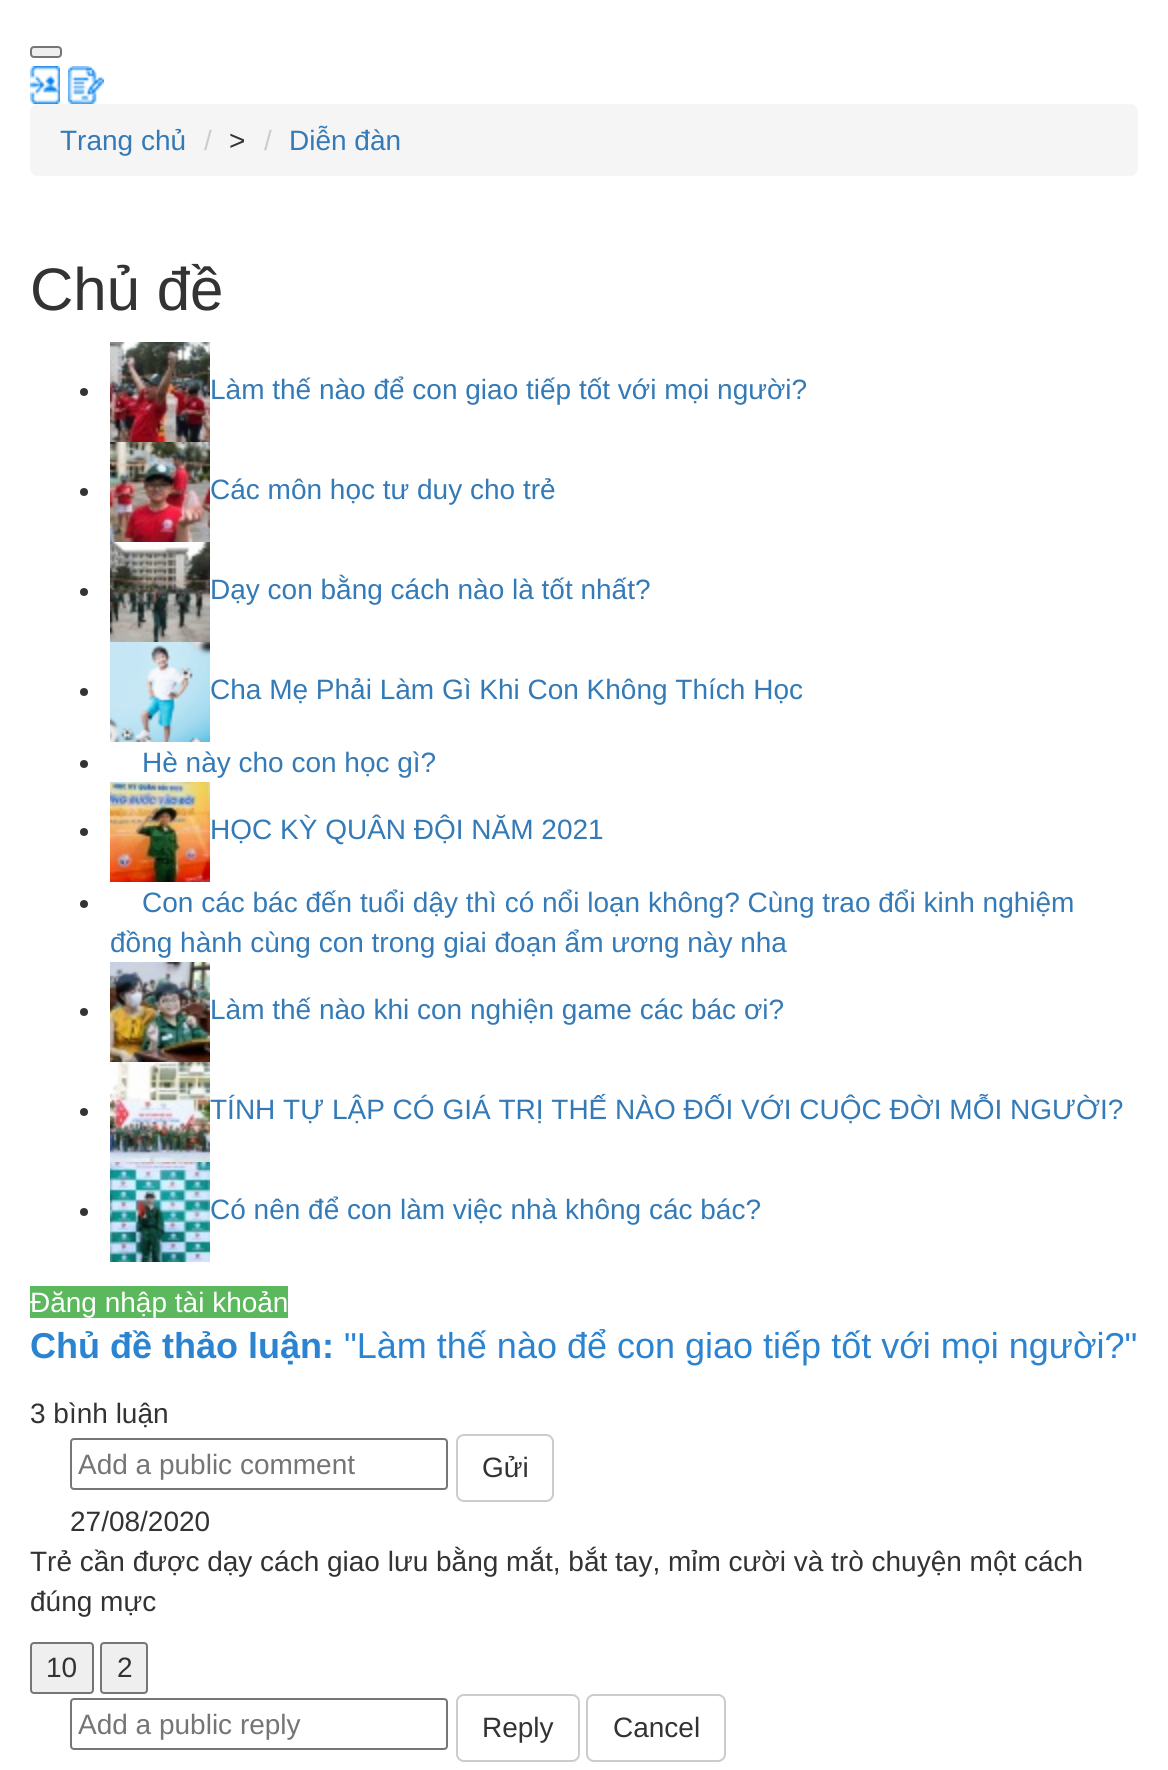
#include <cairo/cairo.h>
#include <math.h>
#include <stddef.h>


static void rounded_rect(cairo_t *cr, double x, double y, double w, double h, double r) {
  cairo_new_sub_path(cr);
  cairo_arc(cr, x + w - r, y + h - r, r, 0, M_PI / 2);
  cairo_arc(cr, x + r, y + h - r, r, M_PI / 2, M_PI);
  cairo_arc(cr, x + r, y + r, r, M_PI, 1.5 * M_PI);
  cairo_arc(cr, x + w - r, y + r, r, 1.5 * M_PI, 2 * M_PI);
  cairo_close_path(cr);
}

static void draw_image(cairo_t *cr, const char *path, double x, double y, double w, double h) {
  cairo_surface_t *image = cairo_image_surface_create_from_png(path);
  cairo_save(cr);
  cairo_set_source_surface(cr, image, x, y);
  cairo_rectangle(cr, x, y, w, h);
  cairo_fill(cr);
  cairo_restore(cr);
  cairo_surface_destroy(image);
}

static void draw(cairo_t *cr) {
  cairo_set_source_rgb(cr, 1, 1, 1);
  cairo_paint(cr);
  cairo_set_source_rgb(cr, 239 / 255.0, 239 / 255.0, 239 / 255.0);
  rounded_rect(cr, 31, 47, 30, 10, 3);
  cairo_fill_preserve(cr);
  cairo_set_source_rgb(cr, 118 / 255.0, 118 / 255.0, 118 / 255.0);
  cairo_stroke(cr);
  draw_image(cr, "images/1.png", 30, 66, 30, 38);
  draw_image(cr, "images/2.png", 68, 66, 36, 38);
  cairo_set_source_rgb(cr, 245 / 255.0, 245 / 255.0, 245 / 255.0);
  rounded_rect(cr, 30, 104, 1108, 72, 8);
  cairo_fill(cr);
  cairo_set_source_rgb(cr, 51 / 255.0, 51 / 255.0, 51 / 255.0);
  cairo_arc(cr, 84, 392, 4, 0, 2 * M_PI);
  cairo_fill(cr);
  draw_image(cr, "images/3.png", 110, 342, 100, 100);
  cairo_arc(cr, 84, 492, 4, 0, 2 * M_PI);
  cairo_fill(cr);
  draw_image(cr, "images/4.png", 110, 442, 100, 100);
  cairo_arc(cr, 84, 592, 4, 0, 2 * M_PI);
  cairo_fill(cr);
  draw_image(cr, "images/5.png", 110, 542, 100, 100);
  cairo_arc(cr, 84, 692, 4, 0, 2 * M_PI);
  cairo_fill(cr);
  draw_image(cr, "images/6.png", 110, 642, 100, 100);
  cairo_arc(cr, 84, 764, 4, 0, 2 * M_PI);
  cairo_fill(cr);
  cairo_arc(cr, 84, 832, 4, 0, 2 * M_PI);
  cairo_fill(cr);
  draw_image(cr, "images/7.png", 110, 782, 100, 100);
  cairo_arc(cr, 84, 904, 4, 0, 2 * M_PI);
  cairo_fill(cr);
  cairo_arc(cr, 84, 1012, 4, 0, 2 * M_PI);
  cairo_fill(cr);
  draw_image(cr, "images/8.png", 110, 962, 100, 100);
  cairo_arc(cr, 84, 1112, 4, 0, 2 * M_PI);
  cairo_fill(cr);
  draw_image(cr, "images/9.png", 110, 1062, 100, 100);
  cairo_arc(cr, 84, 1212, 4, 0, 2 * M_PI);
  cairo_fill(cr);
  draw_image(cr, "images/10.png", 110, 1162, 100, 100);
  cairo_set_source_rgb(cr, 92 / 255.0, 184 / 255.0, 92 / 255.0);
  cairo_rectangle(cr, 30, 1286, 258, 32);
  cairo_fill(cr);
  rounded_rect(cr, 71, 1439, 376, 50, 3);
  cairo_set_source_rgb(cr, 118 / 255.0, 118 / 255.0, 118 / 255.0);
  cairo_stroke(cr);
  rounded_rect(cr, 457, 1435, 96, 66, 7);
  cairo_set_source_rgb(cr, 204 / 255.0, 204 / 255.0, 204 / 255.0);
  cairo_stroke(cr);
  cairo_set_source_rgb(cr, 239 / 255.0, 239 / 255.0, 239 / 255.0);
  rounded_rect(cr, 31, 1643, 62, 50, 3);
  cairo_fill_preserve(cr);
  cairo_set_source_rgb(cr, 118 / 255.0, 118 / 255.0, 118 / 255.0);
  cairo_stroke(cr);
  cairo_set_source_rgb(cr, 239 / 255.0, 239 / 255.0, 239 / 255.0);
  rounded_rect(cr, 101, 1643, 46, 50, 3);
  cairo_fill_preserve(cr);
  cairo_set_source_rgb(cr, 118 / 255.0, 118 / 255.0, 118 / 255.0);
  cairo_stroke(cr);
  rounded_rect(cr, 71, 1699, 376, 50, 3);
  cairo_stroke(cr);
  rounded_rect(cr, 457, 1695, 122, 66, 7);
  cairo_set_source_rgb(cr, 204 / 255.0, 204 / 255.0, 204 / 255.0);
  cairo_stroke(cr);
  rounded_rect(cr, 587, 1695, 138, 66, 7);
  cairo_stroke(cr);
  cairo_select_font_face(cr, "Liberation Sans", CAIRO_FONT_SLANT_NORMAL, CAIRO_FONT_WEIGHT_NORMAL);
  cairo_set_font_size(cr, 28);
  cairo_set_source_rgb(cr, 51 / 255.0, 122 / 255.0, 183 / 255.0);
  cairo_move_to(cr, 60, 150);
  cairo_show_text(cr, "Trang chủ");
  cairo_set_source_rgb(cr, 204 / 255.0, 204 / 255.0, 204 / 255.0);
  cairo_move_to(cr, 204, 150);
  cairo_show_text(cr, "/");
  cairo_set_source_rgb(cr, 51 / 255.0, 51 / 255.0, 51 / 255.0);
  cairo_move_to(cr, 229, 150);
  cairo_show_text(cr, ">");
  cairo_set_source_rgb(cr, 204 / 255.0, 204 / 255.0, 204 / 255.0);
  cairo_move_to(cr, 264, 150);
  cairo_show_text(cr, "/");
  cairo_set_source_rgb(cr, 51 / 255.0, 122 / 255.0, 183 / 255.0);
  cairo_move_to(cr, 289, 150);
  cairo_show_text(cr, "Diễn đàn");
  cairo_set_font_size(cr, 60);
  cairo_set_source_rgb(cr, 51 / 255.0, 51 / 255.0, 51 / 255.0);
  cairo_move_to(cr, 30, 310);
  cairo_show_text(cr, "Chủ đề");
  cairo_set_font_size(cr, 28);
  cairo_set_source_rgb(cr, 51 / 255.0, 122 / 255.0, 183 / 255.0);
  cairo_move_to(cr, 210, 399);
  cairo_show_text(cr, "Làm thế nào để con giao tiếp tốt với mọi người?");
  cairo_move_to(cr, 210, 499);
  cairo_show_text(cr, "Các môn học tư duy cho trẻ");
  cairo_move_to(cr, 210, 599);
  cairo_show_text(cr, "Dạy con bằng cách nào là tốt nhất?");
  cairo_move_to(cr, 210, 699);
  cairo_show_text(cr, "Cha Mẹ Phải Làm Gì Khi Con Không Thích Học");
  cairo_move_to(cr, 142, 772);
  cairo_show_text(cr, "Hè này cho con học gì?");
  cairo_move_to(cr, 210, 839);
  cairo_show_text(cr, "HỌC KỲ QUÂN ĐỘI NĂM 2021");
  cairo_move_to(cr, 142, 912);
  cairo_show_text(cr, "Con các bác đến tuổi dậy thì có nổi loạn không? Cùng trao đổi kinh nghiệm");
  cairo_move_to(cr, 110, 952);
  cairo_show_text(cr, "đồng hành cùng con trong giai đoạn ẩm ương này nha");
  cairo_move_to(cr, 210, 1019);
  cairo_show_text(cr, "Làm thế nào khi con nghiện game các bác ơi?");
  cairo_move_to(cr, 210, 1119);
  cairo_show_text(cr, "TÍNH TỰ LẬP CÓ GIÁ TRỊ THẾ NÀO ĐỐI VỚI CUỘC ĐỜI MỖI NGƯỜI?");
  cairo_move_to(cr, 210, 1219);
  cairo_show_text(cr, "Có nên để con làm việc nhà không các bác?");
  cairo_set_source_rgb(cr, 1, 1, 1);
  cairo_move_to(cr, 30, 1312);
  cairo_show_text(cr, "Đăng nhập tài khoản");
  cairo_select_font_face(cr, "Liberation Sans", CAIRO_FONT_SLANT_NORMAL, CAIRO_FONT_WEIGHT_BOLD);
  cairo_set_font_size(cr, 36);
  cairo_set_source_rgb(cr, 44 / 255.0, 132 / 255.0, 209 / 255.0);
  cairo_move_to(cr, 30, 1358);
  cairo_show_text(cr, "Chủ đề thảo luận:");
  cairo_select_font_face(cr, "Liberation Sans", CAIRO_FONT_SLANT_NORMAL, CAIRO_FONT_WEIGHT_NORMAL);
  cairo_move_to(cr, 344, 1358);
  cairo_show_text(cr, "\"Làm thế nào để con giao tiếp tốt với mọi người?\"");
  cairo_set_font_size(cr, 28);
  cairo_set_source_rgb(cr, 51 / 255.0, 51 / 255.0, 51 / 255.0);
  cairo_move_to(cr, 30, 1423);
  cairo_show_text(cr, "3 bình luận");
  cairo_set_source_rgb(cr, 117 / 255.0, 117 / 255.0, 117 / 255.0);
  cairo_move_to(cr, 78, 1474);
  cairo_show_text(cr, "Add a public comment");
  cairo_set_source_rgb(cr, 51 / 255.0, 51 / 255.0, 51 / 255.0);
  cairo_move_to(cr, 482, 1477);
  cairo_show_text(cr, "Gửi");
  cairo_move_to(cr, 70, 1531);
  cairo_show_text(cr, "27/08/2020");
  cairo_move_to(cr, 30, 1571);
  cairo_show_text(cr, "Trẻ cần được dạy cách giao lưu bằng mắt, bắt tay, mỉm cười và trò chuyện một cách");
  cairo_move_to(cr, 30, 1611);
  cairo_show_text(cr, "đúng mực");
  cairo_move_to(cr, 46, 1677);
  cairo_show_text(cr, "10");
  cairo_move_to(cr, 117, 1677);
  cairo_show_text(cr, "2");
  cairo_set_source_rgb(cr, 117 / 255.0, 117 / 255.0, 117 / 255.0);
  cairo_move_to(cr, 78, 1734);
  cairo_show_text(cr, "Add a public reply");
  cairo_set_source_rgb(cr, 51 / 255.0, 51 / 255.0, 51 / 255.0);
  cairo_move_to(cr, 482, 1737);
  cairo_show_text(cr, "Reply");
  cairo_move_to(cr, 613, 1737);
  cairo_show_text(cr, "Cancel");
}

int main(void) {
  cairo_surface_t *surface = cairo_image_surface_create(CAIRO_FORMAT_RGB24, 1168, 1770);
  cairo_t *cr = cairo_create(surface);
  cairo_font_options_t *options = cairo_font_options_create();
  cairo_font_options_set_hint_metrics(options, CAIRO_HINT_METRICS_OFF);
  cairo_font_options_set_hint_style(options, CAIRO_HINT_STYLE_NONE);
  cairo_set_font_options(cr, options);
  cairo_set_miter_limit(cr, 4);
  draw(cr);
  cairo_surface_write_to_png(surface, "out.png");
  cairo_font_options_destroy(options);
  cairo_destroy(cr);
  cairo_surface_destroy(surface);
  return 0;
}
